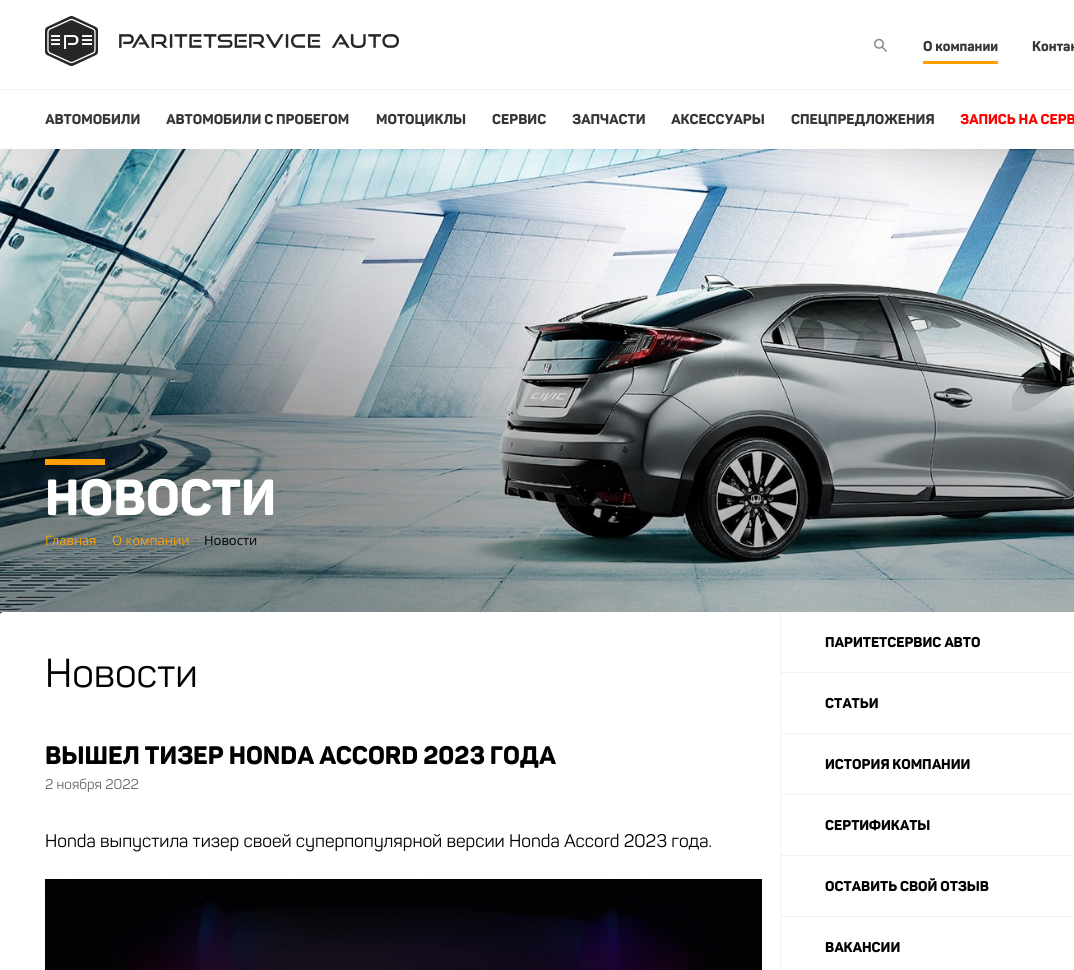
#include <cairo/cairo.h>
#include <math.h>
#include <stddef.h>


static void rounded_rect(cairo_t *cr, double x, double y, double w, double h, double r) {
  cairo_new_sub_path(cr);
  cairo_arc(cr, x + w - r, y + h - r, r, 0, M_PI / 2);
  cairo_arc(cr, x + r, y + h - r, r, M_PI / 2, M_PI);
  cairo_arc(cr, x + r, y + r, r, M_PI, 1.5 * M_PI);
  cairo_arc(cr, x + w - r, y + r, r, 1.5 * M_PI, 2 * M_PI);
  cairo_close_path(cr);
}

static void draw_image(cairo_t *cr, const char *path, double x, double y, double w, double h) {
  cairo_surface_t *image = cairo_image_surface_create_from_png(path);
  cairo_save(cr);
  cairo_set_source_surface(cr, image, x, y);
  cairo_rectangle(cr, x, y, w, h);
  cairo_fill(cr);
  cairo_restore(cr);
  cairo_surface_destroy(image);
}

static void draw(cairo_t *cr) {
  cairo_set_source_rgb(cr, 1, 1, 1);
  cairo_paint(cr);
  cairo_set_source_rgb(cr, 242 / 255.0, 242 / 255.0, 242 / 255.0);
  cairo_rectangle(cr, 0, 89, 1074, 1);
  cairo_fill(cr);
  draw_image(cr, "images/1.png", 45, 16, 354, 50);
  draw_image(cr, "images/2.png", 874, 38, 13, 14);
  cairo_set_source_rgb(cr, 1, 159 / 255.0, 2 / 255.0);
  cairo_rectangle(cr, 923, 61, 75, 3);
  cairo_fill(cr);
  draw_image(cr, "images/3.png", 0, 149, 1074, 466);
  cairo_rectangle(cr, 45, 459, 60, 6);
  cairo_fill(cr);
  cairo_set_source_rgb(cr, 1, 1, 1);
  rounded_rect(cr, 0, 612, 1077, 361, 3);
  cairo_fill(cr);
  cairo_set_source_rgb(cr, 242 / 255.0, 242 / 255.0, 242 / 255.0);
  cairo_rectangle(cr, 780, 612, 1, 358);
  cairo_fill(cr);
  draw_image(cr, "images/4.png", 45, 879, 717, 91);
  cairo_rectangle(cr, 781, 672, 293, 1);
  cairo_fill(cr);
  cairo_rectangle(cr, 781, 733, 293, 1);
  cairo_fill(cr);
  cairo_rectangle(cr, 781, 794, 293, 1);
  cairo_fill(cr);
  cairo_rectangle(cr, 781, 855, 293, 1);
  cairo_fill(cr);
  cairo_rectangle(cr, 781, 916, 293, 1);
  cairo_fill(cr);
  cairo_select_font_face(cr, "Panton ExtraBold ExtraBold", CAIRO_FONT_SLANT_NORMAL, CAIRO_FONT_WEIGHT_NORMAL);
  cairo_set_font_size(cr, 14);
  cairo_set_source_rgb(cr, 55 / 255.0, 55 / 255.0, 55 / 255.0);
  cairo_move_to(cr, 923, 51);
  cairo_show_text(cr, "О компании");
  cairo_move_to(cr, 1032, 51);
  cairo_show_text(cr, "Контак");
  cairo_move_to(cr, 45, 124);
  cairo_show_text(cr, "АВТОМОБИЛИ");
  cairo_move_to(cr, 166, 124);
  cairo_show_text(cr, "АВТОМОБИЛИ С ПРОБЕГОМ");
  cairo_move_to(cr, 376, 124);
  cairo_show_text(cr, "МОТОЦИКЛЫ");
  cairo_move_to(cr, 492, 124);
  cairo_show_text(cr, "СЕРВИС");
  cairo_move_to(cr, 572, 124);
  cairo_show_text(cr, "ЗАПЧАСТИ");
  cairo_move_to(cr, 671, 124);
  cairo_show_text(cr, "АКСЕССУАРЫ");
  cairo_move_to(cr, 791, 124);
  cairo_show_text(cr, "СПЕЦПРЕДЛОЖЕНИЯ");
  cairo_set_source_rgb(cr, 1, 0, 0);
  cairo_move_to(cr, 960, 124);
  cairo_show_text(cr, "ЗАПИСЬ НА СЕРВ");
  cairo_set_font_size(cr, 50);
  cairo_set_source_rgb(cr, 1, 1, 1);
  cairo_move_to(cr, 45, 515);
  cairo_show_text(cr, "НОВОСТИ");
  cairo_select_font_face(cr, "Open Sans", CAIRO_FONT_SLANT_NORMAL, CAIRO_FONT_WEIGHT_NORMAL);
  cairo_set_font_size(cr, 13);
  cairo_set_source_rgb(cr, 1, 159 / 255.0, 2 / 255.0);
  cairo_move_to(cr, 45, 545);
  cairo_show_text(cr, "Главная");
  cairo_move_to(cr, 112, 545);
  cairo_show_text(cr, "О компании");
  cairo_set_source_rgb(cr, 0, 0, 0);
  cairo_move_to(cr, 204, 545);
  cairo_show_text(cr, "Новости");
  cairo_select_font_face(cr, "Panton", CAIRO_FONT_SLANT_NORMAL, CAIRO_FONT_WEIGHT_NORMAL);
  cairo_set_font_size(cr, 40);
  cairo_move_to(cr, 45, 687);
  cairo_show_text(cr, "Новости");
  cairo_select_font_face(cr, "Panton ExtraBold ExtraBold", CAIRO_FONT_SLANT_NORMAL, CAIRO_FONT_WEIGHT_NORMAL);
  cairo_set_font_size(cr, 25);
  cairo_move_to(cr, 45, 764);
  cairo_show_text(cr, "ВЫШЕЛ ТИЗЕР HONDA ACCORD 2023 ГОДА");
  cairo_select_font_face(cr, "Panton", CAIRO_FONT_SLANT_NORMAL, CAIRO_FONT_WEIGHT_NORMAL);
  cairo_set_font_size(cr, 14);
  cairo_set_source_rgb(cr, 102 / 255.0, 102 / 255.0, 102 / 255.0);
  cairo_move_to(cr, 45, 789);
  cairo_show_text(cr, "2 ноября 2022");
  cairo_set_font_size(cr, 18);
  cairo_set_source_rgb(cr, 0, 0, 0);
  cairo_move_to(cr, 45, 847);
  cairo_show_text(cr, "Honda выпустила тизер своей суперпопулярной версии Honda Accord 2023 года.");
  cairo_select_font_face(cr, "Panton ExtraBold ExtraBold", CAIRO_FONT_SLANT_NORMAL, CAIRO_FONT_WEIGHT_NORMAL);
  cairo_set_font_size(cr, 14);
  cairo_move_to(cr, 825, 647);
  cairo_show_text(cr, "ПАРИТЕТСЕРВИС АВТО");
  cairo_move_to(cr, 825, 708);
  cairo_show_text(cr, "СТАТЬИ");
  cairo_move_to(cr, 825, 769);
  cairo_show_text(cr, "ИСТОРИЯ КОМПАНИИ");
  cairo_move_to(cr, 825, 830);
  cairo_show_text(cr, "СЕРТИФИКАТЫ");
  cairo_move_to(cr, 825, 891);
  cairo_show_text(cr, "ОСТАВИТЬ СВОЙ ОТЗЫВ");
  cairo_move_to(cr, 825, 952);
  cairo_show_text(cr, "ВАКАНСИИ");
}

int main(void) {
  cairo_surface_t *surface = cairo_image_surface_create(CAIRO_FORMAT_RGB24, 1074, 970);
  cairo_t *cr = cairo_create(surface);
  cairo_font_options_t *options = cairo_font_options_create();
  cairo_font_options_set_hint_metrics(options, CAIRO_HINT_METRICS_OFF);
  cairo_font_options_set_hint_style(options, CAIRO_HINT_STYLE_NONE);
  cairo_set_font_options(cr, options);
  cairo_set_miter_limit(cr, 4);
  draw(cr);
  cairo_surface_write_to_png(surface, "out.png");
  cairo_font_options_destroy(options);
  cairo_destroy(cr);
  cairo_surface_destroy(surface);
  return 0;
}
